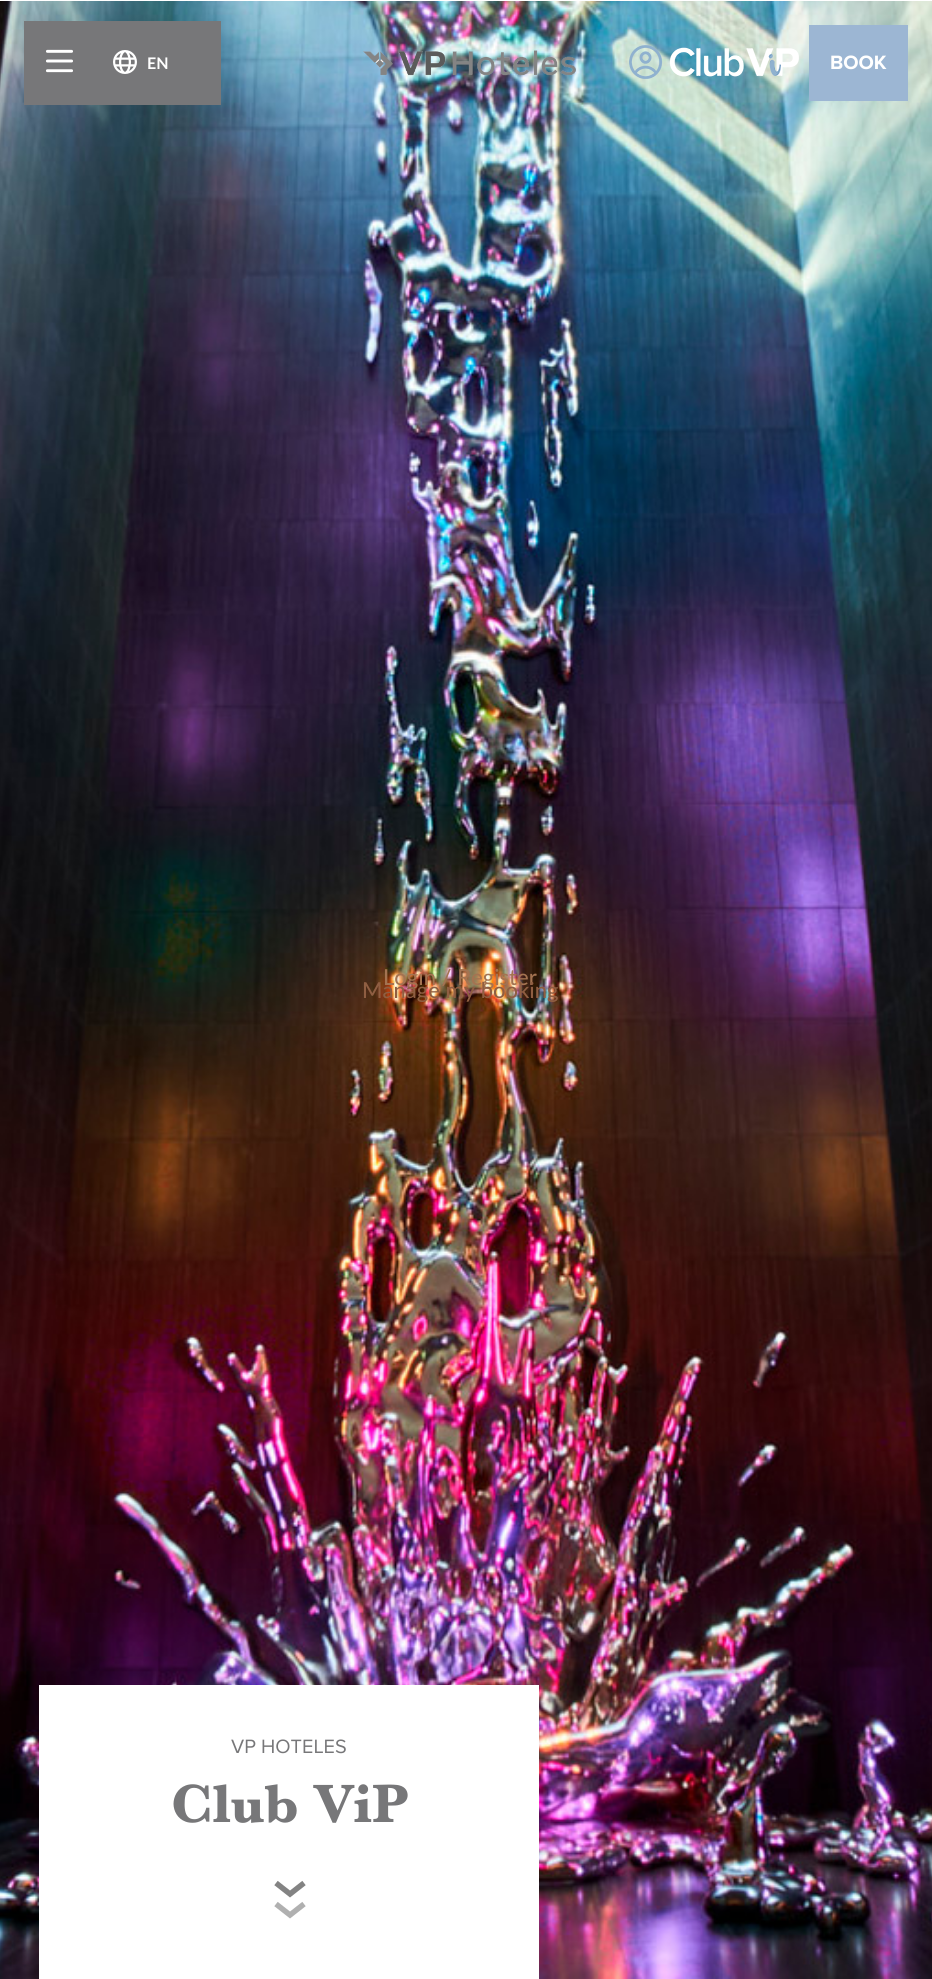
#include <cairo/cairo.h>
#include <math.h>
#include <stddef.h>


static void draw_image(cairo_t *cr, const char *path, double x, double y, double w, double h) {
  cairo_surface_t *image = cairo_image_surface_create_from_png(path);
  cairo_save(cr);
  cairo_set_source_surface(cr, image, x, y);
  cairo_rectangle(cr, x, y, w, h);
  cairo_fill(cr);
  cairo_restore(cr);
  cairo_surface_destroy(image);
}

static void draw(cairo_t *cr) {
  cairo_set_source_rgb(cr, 1, 1, 1);
  cairo_paint(cr);
  draw_image(cr, "images/5.png", 0, 1, 932, 1978);
  cairo_set_source_rgb(cr, 119 / 255.0, 119 / 255.0, 121 / 255.0);
  cairo_rectangle(cr, 24, 21, 197, 84);
  cairo_fill(cr);
  draw_image(cr, "images/1.png", 46, 49, 27, 24);
  draw_image(cr, "images/2.png", 113, 50, 24, 24);
  draw_image(cr, "images/3.png", 363, 50, 213, 26);
  draw_image(cr, "images/4.png", 629, 45, 170, 34);
  cairo_set_source_rgb(cr, 156 / 255.0, 182 / 255.0, 211 / 255.0);
  cairo_rectangle(cr, 809, 25, 99, 76);
  cairo_fill(cr);
  cairo_set_source_rgb(cr, 1, 1, 1);
  cairo_rectangle(cr, 39, 1685, 500, 294);
  cairo_fill(cr);
  cairo_new_path(cr);
  cairo_move_to(cr, 276, 1883);
  cairo_line_to(cr, 290, 1894);
  cairo_line_to(cr, 304, 1883);
  cairo_set_source_rgb(cr, 131 / 255.0, 131 / 255.0, 131 / 255.0);
  cairo_set_line_width(cr, 5.5);
  cairo_stroke(cr);
  cairo_new_path(cr);
  cairo_move_to(cr, 276, 1904);
  cairo_line_to(cr, 290, 1915);
  cairo_line_to(cr, 304, 1904);
  cairo_set_source_rgb(cr, 176 / 255.0, 176 / 255.0, 176 / 255.0);
  cairo_stroke(cr);
  cairo_select_font_face(cr, "Lato", CAIRO_FONT_SLANT_NORMAL, CAIRO_FONT_WEIGHT_BOLD);
  cairo_set_font_size(cr, 16);
  cairo_set_source_rgb(cr, 1, 1, 1);
  cairo_move_to(cr, 147, 69);
  cairo_show_text(cr, "EN");
  cairo_select_font_face(cr, "Proxima Nova", CAIRO_FONT_SLANT_NORMAL, CAIRO_FONT_WEIGHT_BOLD);
  cairo_set_font_size(cr, 20);
  cairo_move_to(cr, 830, 69);
  cairo_show_text(cr, "BOOK");
  cairo_select_font_face(cr, "Lato Medium", CAIRO_FONT_SLANT_NORMAL, CAIRO_FONT_WEIGHT_NORMAL);
  cairo_set_font_size(cr, 22);
  cairo_set_source_rgb(cr, 164 / 255.0, 115 / 255.0, 81 / 255.0);
  cairo_move_to(cr, 383, 985);
  cairo_show_text(cr, "Login / Register");
  cairo_set_source_rgb(cr, 143 / 255.0, 94 / 255.0, 66 / 255.0);
  cairo_move_to(cr, 362, 998);
  cairo_show_text(cr, "Manage my booking");
  cairo_select_font_face(cr, "Proxima Nova", CAIRO_FONT_SLANT_NORMAL, CAIRO_FONT_WEIGHT_NORMAL);
  cairo_set_font_size(cr, 20);
  cairo_set_source_rgb(cr, 119 / 255.0, 119 / 255.0, 121 / 255.0);
  cairo_move_to(cr, 231, 1753);
  cairo_show_text(cr, "VP HOTELES");
  cairo_select_font_face(cr, "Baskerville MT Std", CAIRO_FONT_SLANT_NORMAL, CAIRO_FONT_WEIGHT_BOLD);
  cairo_set_font_size(cr, 56);
  cairo_move_to(cr, 171, 1822);
  cairo_show_text(cr, "Club ViP");
}

int main(void) {
  cairo_surface_t *surface = cairo_image_surface_create(CAIRO_FORMAT_RGB24, 932, 1979);
  cairo_t *cr = cairo_create(surface);
  cairo_font_options_t *options = cairo_font_options_create();
  cairo_font_options_set_hint_metrics(options, CAIRO_HINT_METRICS_OFF);
  cairo_font_options_set_hint_style(options, CAIRO_HINT_STYLE_NONE);
  cairo_set_font_options(cr, options);
  cairo_set_miter_limit(cr, 4);
  draw(cr);
  cairo_surface_write_to_png(surface, "out.png");
  cairo_font_options_destroy(options);
  cairo_destroy(cr);
  cairo_surface_destroy(surface);
  return 0;
}
